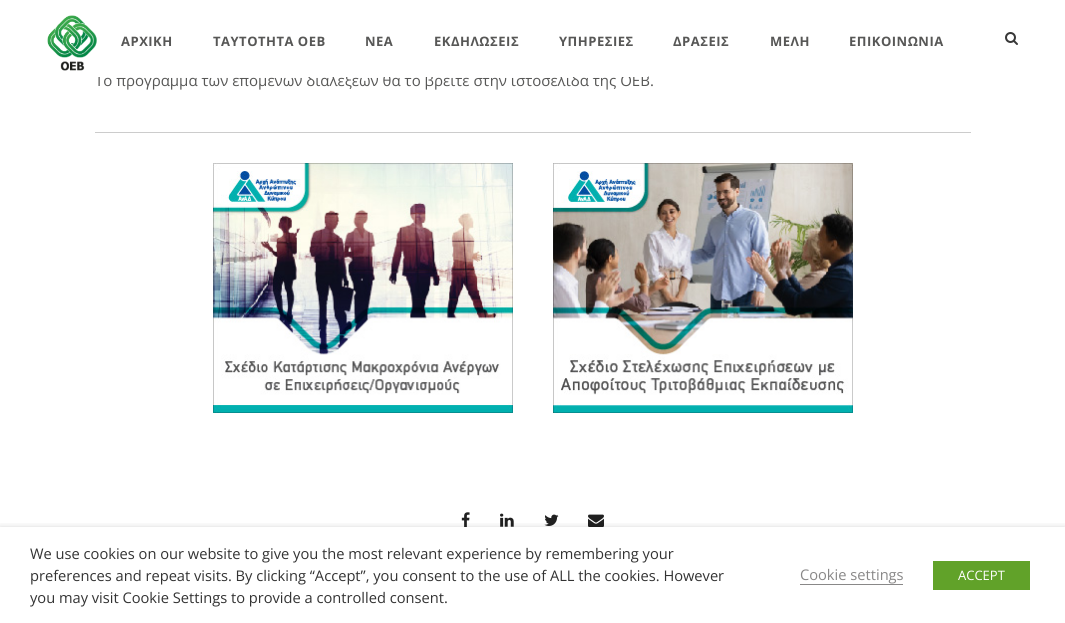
#include <cairo/cairo.h>
#include <math.h>
#include <stddef.h>


static void draw_spaced(cairo_t *cr, double x, double y, const char *s, double letter, double word) {
  cairo_move_to(cr, x, y);
  while (*s) {
    char ch[5] = {0};
    int n = 0;
    do ch[n++] = *s++; while ((*s & 0xC0) == 0x80);
    cairo_show_text(cr, ch);
    cairo_rel_move_to(cr, letter + word * (*ch == ' '), 0);
  }
}

static void rounded_rect(cairo_t *cr, double x, double y, double w, double h, double r) {
  cairo_new_sub_path(cr);
  cairo_arc(cr, x + w - r, y + h - r, r, 0, M_PI / 2);
  cairo_arc(cr, x + r, y + h - r, r, M_PI / 2, M_PI);
  cairo_arc(cr, x + r, y + r, r, M_PI, 1.5 * M_PI);
  cairo_arc(cr, x + w - r, y + r, r, 1.5 * M_PI, 2 * M_PI);
  cairo_close_path(cr);
}

static void draw_shadow(cairo_t *cr, double x, double y, double w, double h, double r, double blur, double alpha) {
  cairo_push_group_with_content(cr, CAIRO_CONTENT_ALPHA);
  cairo_set_operator(cr, CAIRO_OPERATOR_SOURCE);
  for (int i = 15; i >= -15 && fmin(w, h) + blur * i / 3 > 0; i -= 2) {
    double e = blur * i / 6;
    cairo_set_source_rgba(cr, 0, 0, 0, alpha * erfc((i - 1) / 8.5) / 2);
    rounded_rect(cr, x - e, y - e, w + 2 * e, h + 2 * e, fmax(0, fmin(r + e + blur * .6, fmin(w, h) / 2 + e)));
    cairo_fill(cr);
  }
  cairo_pattern_t *soft = cairo_pop_group(cr);
  cairo_mask(cr, soft);
  cairo_pattern_destroy(soft);
}

static void draw_image(cairo_t *cr, const char *path, double x, double y, double w, double h) {
  cairo_surface_t *image = cairo_image_surface_create_from_png(path);
  cairo_save(cr);
  cairo_set_source_surface(cr, image, x, y);
  cairo_rectangle(cr, x, y, w, h);
  cairo_fill(cr);
  cairo_restore(cr);
  cairo_surface_destroy(image);
}

static void draw(cairo_t *cr) {
  cairo_set_source_rgb(cr, 1, 1, 1);
  cairo_paint(cr);
  draw_image(cr, "images/1.png", 47, 15, 50, 56);
  draw_image(cr, "images/2.png", 1005, 32, 13, 13);
  cairo_set_source_rgb(cr, 204 / 255.0, 204 / 255.0, 204 / 255.0);
  cairo_rectangle(cr, 95, 132, 876, 1);
  cairo_fill(cr);
  draw_image(cr, "images/3.png", 213, 163, 300, 250);
  draw_image(cr, "images/4.png", 553, 163, 300, 250);
  draw_image(cr, "images/5.png", 461, 512, 9, 16);
  draw_image(cr, "images/6.png", 500, 513, 14, 14);
  draw_image(cr, "images/7.png", 544, 514, 15, 12);
  draw_image(cr, "images/8.png", 588, 514, 16, 14);
  cairo_save(cr);
  cairo_rectangle(cr, 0, 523, 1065, 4);
  cairo_clip(cr);
  cairo_set_source_rgb(cr, 0, 0, 0);
  draw_shadow(cr, 0, 532, 1065, 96, 0, 5, 0.5);
  cairo_restore(cr);
  cairo_set_source_rgba(cr, 1, 1, 1, 0.97);
  cairo_rectangle(cr, 464, 527, 139, 1);
  cairo_fill(cr);
  cairo_set_source_rgb(cr, 137 / 255.0, 136 / 255.0, 136 / 255.0);
  cairo_rectangle(cr, 800, 584, 103, 1);
  cairo_fill(cr);
  cairo_set_source_rgb(cr, 97 / 255.0, 162 / 255.0, 41 / 255.0);
  cairo_rectangle(cr, 933, 561, 97, 29);
  cairo_fill(cr);
  cairo_select_font_face(cr, "Open Sans", CAIRO_FONT_SLANT_NORMAL, CAIRO_FONT_WEIGHT_BOLD);
  cairo_set_font_size(cr, 13);
  cairo_set_source_rgb(cr, 87 / 255.0, 87 / 255.0, 86 / 255.0);
  draw_spaced(cr, 121, 46, "ΑΡΧΙΚΗ", 0.5, 0);
  draw_spaced(cr, 213, 46, "ΤΑΥΤΟΤΗΤΑ ΟΕΒ", 0.5, 0);
  draw_spaced(cr, 365, 46, "ΝΕΑ", 0.5, 0);
  draw_spaced(cr, 434, 46, "ΕΚΔΗΛΩΣΕΙΣ", 0.5, 0);
  draw_spaced(cr, 559, 46, "ΥΠΗΡΕΣΙΕΣ", 0.5, 0);
  draw_spaced(cr, 673, 46, "ΔΡΑΣΕΙΣ", 0.5, 0);
  draw_spaced(cr, 770, 46, "ΜΕΛΗ", 0.5, 0);
  draw_spaced(cr, 849, 46, "ΕΠΙΚΟΙΝΩΝΙΑ", 0.5, 0);
  cairo_select_font_face(cr, "Open Sans", CAIRO_FONT_SLANT_NORMAL, CAIRO_FONT_WEIGHT_NORMAL);
  cairo_set_font_size(cr, 15);
  cairo_move_to(cr, 95, 86);
  cairo_show_text(cr, "Το πρόγραμμα των επόμενων διαλέξεων θα το βρείτε στην ιστοσελίδα της ΟΕΒ.");
  cairo_set_source_rgb(cr, 1, 1, 1);
  cairo_rectangle(cr, 94, 73, 554, 4);
  cairo_fill(cr);
  cairo_set_font_size(cr, 14.65);
  cairo_set_source_rgb(cr, 51 / 255.0, 51 / 255.0, 51 / 255.0);
  cairo_move_to(cr, 30, 559);
  cairo_show_text(cr, "We use cookies on our website to give you the most relevant experience by remembering your");
  cairo_move_to(cr, 30, 581);
  cairo_show_text(cr, "preferences and repeat visits. By clicking “Accept”, you consent to the use of ALL the cookies. However");
  cairo_move_to(cr, 30, 603);
  cairo_show_text(cr, "you may visit Cookie Settings to provide a controlled consent.");
  cairo_set_source_rgb(cr, 137 / 255.0, 136 / 255.0, 136 / 255.0);
  cairo_move_to(cr, 800, 580);
  cairo_show_text(cr, "Cookie settings");
  cairo_set_font_size(cr, 13);
  cairo_set_source_rgb(cr, 1, 1, 1);
  cairo_move_to(cr, 958, 580);
  cairo_show_text(cr, "ACCEPT");
}

int main(void) {
  cairo_surface_t *surface = cairo_image_surface_create(CAIRO_FORMAT_RGB24, 1065, 623);
  cairo_t *cr = cairo_create(surface);
  cairo_font_options_t *options = cairo_font_options_create();
  cairo_font_options_set_hint_metrics(options, CAIRO_HINT_METRICS_OFF);
  cairo_font_options_set_hint_style(options, CAIRO_HINT_STYLE_NONE);
  cairo_set_font_options(cr, options);
  cairo_set_miter_limit(cr, 4);
  draw(cr);
  cairo_surface_write_to_png(surface, "out.png");
  cairo_font_options_destroy(options);
  cairo_destroy(cr);
  cairo_surface_destroy(surface);
  return 0;
}
